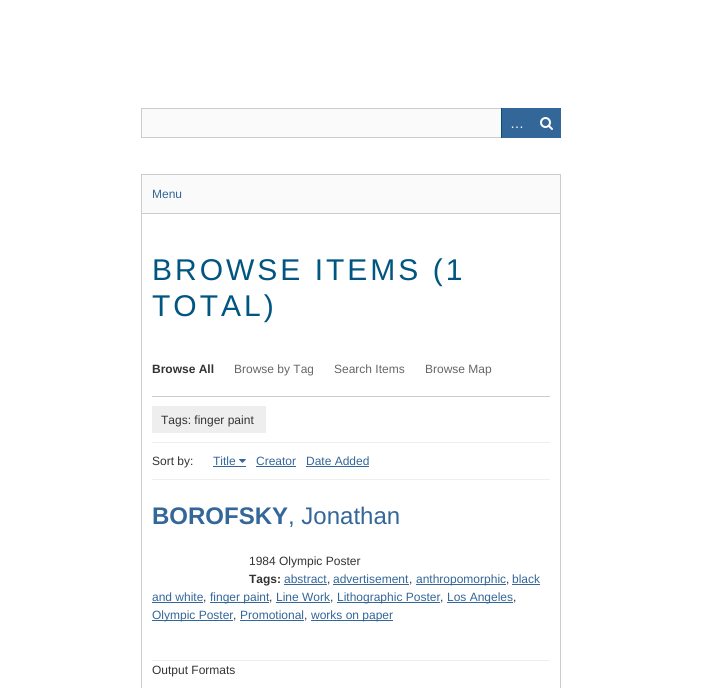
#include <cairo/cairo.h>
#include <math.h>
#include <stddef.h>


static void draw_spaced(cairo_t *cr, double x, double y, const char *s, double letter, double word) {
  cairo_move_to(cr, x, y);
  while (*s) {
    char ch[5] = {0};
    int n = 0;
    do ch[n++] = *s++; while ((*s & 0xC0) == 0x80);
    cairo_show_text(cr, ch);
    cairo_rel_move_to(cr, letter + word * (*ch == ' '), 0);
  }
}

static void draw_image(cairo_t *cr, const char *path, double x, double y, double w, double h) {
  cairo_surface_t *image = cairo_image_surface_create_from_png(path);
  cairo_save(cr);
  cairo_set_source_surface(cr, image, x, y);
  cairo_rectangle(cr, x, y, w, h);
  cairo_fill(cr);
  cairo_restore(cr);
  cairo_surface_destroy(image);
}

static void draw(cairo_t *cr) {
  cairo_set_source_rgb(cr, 1, 1, 1);
  cairo_paint(cr);
  cairo_set_source_rgb(cr, 250 / 255.0, 250 / 255.0, 250 / 255.0);
  cairo_rectangle(cr, 142, 109, 359, 28);
  cairo_fill(cr);
  cairo_rectangle(cr, 141.5, 108.5, 419, 29);
  cairo_set_source_rgb(cr, 204 / 255.0, 204 / 255.0, 204 / 255.0);
  cairo_set_line_width(cr, 1);
  cairo_stroke(cr);
  cairo_set_source_rgb(cr, 0, 81 / 255.0, 119 / 255.0);
  cairo_rectangle(cr, 501, 108, 1, 30);
  cairo_fill(cr);
  cairo_set_source_rgb(cr, 51 / 255.0, 102 / 255.0, 153 / 255.0);
  cairo_rectangle(cr, 502, 108, 59, 30);
  cairo_fill(cr);
  draw_image(cr, "images/1.png", 540, 117, 13, 13);
  cairo_set_source_rgb(cr, 250 / 255.0, 250 / 255.0, 250 / 255.0);
  cairo_rectangle(cr, 142, 175, 418, 38);
  cairo_fill(cr);
  cairo_set_source_rgb(cr, 204 / 255.0, 204 / 255.0, 204 / 255.0);
  cairo_rectangle(cr, 141, 174, 420, 1);
  cairo_fill(cr);
  cairo_rectangle(cr, 560, 174, 1, 39);
  cairo_fill(cr);
  cairo_rectangle(cr, 141, 174, 1, 39);
  cairo_fill(cr);
  cairo_rectangle(cr, 141.5, 213.5, 419, 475);
  cairo_stroke(cr);
  cairo_rectangle(cr, 152, 396, 398, 1);
  cairo_fill(cr);
  cairo_set_source_rgb(cr, 238 / 255.0, 238 / 255.0, 238 / 255.0);
  cairo_rectangle(cr, 152, 442, 398, 1);
  cairo_fill(cr);
  cairo_rectangle(cr, 152, 406, 114, 27);
  cairo_fill(cr);
  cairo_set_source_rgb(cr, 51 / 255.0, 102 / 255.0, 153 / 255.0);
  cairo_rectangle(cr, 213, 466, 33, 1);
  cairo_fill(cr);
  draw_image(cr, "images/2.png", 239, 459, 7, 4);
  cairo_rectangle(cr, 256, 466, 40, 1);
  cairo_fill(cr);
  cairo_rectangle(cr, 306, 466, 63, 1);
  cairo_fill(cr);
  cairo_set_source_rgb(cr, 238 / 255.0, 238 / 255.0, 238 / 255.0);
  cairo_rectangle(cr, 152, 479, 398, 1);
  cairo_fill(cr);
  cairo_rectangle(cr, 152, 660, 398, 1);
  cairo_fill(cr);
  cairo_set_source_rgb(cr, 51 / 255.0, 102 / 255.0, 153 / 255.0);
  cairo_rectangle(cr, 284, 584, 43, 1);
  cairo_fill(cr);
  cairo_rectangle(cr, 333, 584, 76, 1);
  cairo_fill(cr);
  cairo_rectangle(cr, 416, 584, 90, 1);
  cairo_fill(cr);
  cairo_rectangle(cr, 512, 584, 28, 1);
  cairo_fill(cr);
  cairo_rectangle(cr, 152, 602, 51, 1);
  cairo_fill(cr);
  cairo_rectangle(cr, 210, 602, 59, 1);
  cairo_fill(cr);
  cairo_rectangle(cr, 276, 602, 54, 1);
  cairo_fill(cr);
  cairo_rectangle(cr, 337, 602, 103, 1);
  cairo_fill(cr);
  cairo_rectangle(cr, 447, 602, 66, 1);
  cairo_fill(cr);
  cairo_rectangle(cr, 152, 620, 81, 1);
  cairo_fill(cr);
  cairo_rectangle(cr, 240, 620, 64, 1);
  cairo_fill(cr);
  cairo_rectangle(cr, 311, 620, 82, 1);
  cairo_fill(cr);
  cairo_select_font_face(cr, "Liberation Sans", CAIRO_FONT_SLANT_NORMAL, CAIRO_FONT_WEIGHT_NORMAL);
  cairo_set_font_size(cr, 14);
  cairo_set_source_rgb(cr, 1, 1, 1);
  cairo_move_to(cr, 510, 128);
  cairo_show_text(cr, "…");
  cairo_set_font_size(cr, 12);
  cairo_set_source_rgb(cr, 51 / 255.0, 102 / 255.0, 153 / 255.0);
  cairo_move_to(cr, 152, 198);
  cairo_show_text(cr, "Menu");
  cairo_set_font_size(cr, 30);
  cairo_set_source_rgb(cr, 1 / 255.0, 85 / 255.0, 129 / 255.0);
  draw_spaced(cr, 152, 280, "BROWSE ITEMS (1", 3, 0);
  draw_spaced(cr, 152, 316, "TOTAL)", 3, 0);
  cairo_select_font_face(cr, "Liberation Sans", CAIRO_FONT_SLANT_NORMAL, CAIRO_FONT_WEIGHT_BOLD);
  cairo_set_font_size(cr, 12);
  cairo_set_source_rgb(cr, 51 / 255.0, 51 / 255.0, 51 / 255.0);
  cairo_move_to(cr, 152, 373);
  cairo_show_text(cr, "Browse All");
  cairo_select_font_face(cr, "Liberation Sans", CAIRO_FONT_SLANT_NORMAL, CAIRO_FONT_WEIGHT_NORMAL);
  cairo_set_source_rgb(cr, 102 / 255.0, 102 / 255.0, 102 / 255.0);
  cairo_move_to(cr, 234, 373);
  cairo_show_text(cr, "Browse by Tag");
  cairo_move_to(cr, 334, 373);
  cairo_show_text(cr, "Search Items");
  cairo_move_to(cr, 425, 373);
  cairo_show_text(cr, "Browse Map");
  cairo_set_source_rgb(cr, 51 / 255.0, 51 / 255.0, 51 / 255.0);
  cairo_move_to(cr, 161, 424);
  cairo_show_text(cr, "Tags: finger paint");
  cairo_move_to(cr, 152, 465);
  cairo_show_text(cr, "Sort by:");
  cairo_set_source_rgb(cr, 51 / 255.0, 102 / 255.0, 153 / 255.0);
  cairo_move_to(cr, 213, 465);
  cairo_show_text(cr, "Title");
  cairo_move_to(cr, 256, 465);
  cairo_show_text(cr, "Creator");
  cairo_move_to(cr, 306, 465);
  cairo_show_text(cr, "Date Added");
  cairo_select_font_face(cr, "Liberation Sans", CAIRO_FONT_SLANT_NORMAL, CAIRO_FONT_WEIGHT_BOLD);
  cairo_set_font_size(cr, 24);
  cairo_move_to(cr, 152, 524);
  cairo_show_text(cr, "BOROFSKY");
  cairo_select_font_face(cr, "Liberation Sans", CAIRO_FONT_SLANT_NORMAL, CAIRO_FONT_WEIGHT_NORMAL);
  cairo_move_to(cr, 288, 524);
  cairo_show_text(cr, ", Jonathan");
  cairo_set_font_size(cr, 12);
  cairo_set_source_rgb(cr, 51 / 255.0, 51 / 255.0, 51 / 255.0);
  cairo_move_to(cr, 249, 565);
  cairo_show_text(cr, "1984 Olympic Poster");
  cairo_select_font_face(cr, "Liberation Sans", CAIRO_FONT_SLANT_NORMAL, CAIRO_FONT_WEIGHT_BOLD);
  cairo_move_to(cr, 249, 583);
  cairo_show_text(cr, "Tags:");
  cairo_select_font_face(cr, "Liberation Sans", CAIRO_FONT_SLANT_NORMAL, CAIRO_FONT_WEIGHT_NORMAL);
  cairo_set_source_rgb(cr, 51 / 255.0, 102 / 255.0, 153 / 255.0);
  cairo_move_to(cr, 284, 583);
  cairo_show_text(cr, "abstract");
  cairo_set_source_rgb(cr, 51 / 255.0, 51 / 255.0, 51 / 255.0);
  cairo_move_to(cr, 327, 583);
  cairo_show_text(cr, ",");
  cairo_set_source_rgb(cr, 51 / 255.0, 102 / 255.0, 153 / 255.0);
  cairo_move_to(cr, 333, 583);
  cairo_show_text(cr, "advertisement");
  cairo_set_source_rgb(cr, 51 / 255.0, 51 / 255.0, 51 / 255.0);
  cairo_move_to(cr, 409, 583);
  cairo_show_text(cr, ",");
  cairo_set_source_rgb(cr, 51 / 255.0, 102 / 255.0, 153 / 255.0);
  cairo_move_to(cr, 416, 583);
  cairo_show_text(cr, "anthropomorphic");
  cairo_set_source_rgb(cr, 51 / 255.0, 51 / 255.0, 51 / 255.0);
  cairo_move_to(cr, 506, 583);
  cairo_show_text(cr, ",");
  cairo_set_source_rgb(cr, 51 / 255.0, 102 / 255.0, 153 / 255.0);
  cairo_move_to(cr, 512, 583);
  cairo_show_text(cr, "black");
  cairo_move_to(cr, 152, 601);
  cairo_show_text(cr, "and white");
  cairo_set_source_rgb(cr, 51 / 255.0, 51 / 255.0, 51 / 255.0);
  cairo_move_to(cr, 203, 601);
  cairo_show_text(cr, ",");
  cairo_set_source_rgb(cr, 51 / 255.0, 102 / 255.0, 153 / 255.0);
  cairo_move_to(cr, 210, 601);
  cairo_show_text(cr, "finger paint");
  cairo_set_source_rgb(cr, 51 / 255.0, 51 / 255.0, 51 / 255.0);
  cairo_move_to(cr, 269, 601);
  cairo_show_text(cr, ",");
  cairo_set_source_rgb(cr, 51 / 255.0, 102 / 255.0, 153 / 255.0);
  cairo_move_to(cr, 276, 601);
  cairo_show_text(cr, "Line Work");
  cairo_set_source_rgb(cr, 51 / 255.0, 51 / 255.0, 51 / 255.0);
  cairo_move_to(cr, 330, 601);
  cairo_show_text(cr, ",");
  cairo_set_source_rgb(cr, 51 / 255.0, 102 / 255.0, 153 / 255.0);
  cairo_move_to(cr, 337, 601);
  cairo_show_text(cr, "Lithographic Poster");
  cairo_set_source_rgb(cr, 51 / 255.0, 51 / 255.0, 51 / 255.0);
  cairo_move_to(cr, 440, 601);
  cairo_show_text(cr, ",");
  cairo_set_source_rgb(cr, 51 / 255.0, 102 / 255.0, 153 / 255.0);
  cairo_move_to(cr, 447, 601);
  cairo_show_text(cr, "Los Angeles");
  cairo_set_source_rgb(cr, 51 / 255.0, 51 / 255.0, 51 / 255.0);
  cairo_move_to(cr, 513, 601);
  cairo_show_text(cr, ",");
  cairo_set_source_rgb(cr, 51 / 255.0, 102 / 255.0, 153 / 255.0);
  cairo_move_to(cr, 152, 619);
  cairo_show_text(cr, "Olympic Poster");
  cairo_set_source_rgb(cr, 51 / 255.0, 51 / 255.0, 51 / 255.0);
  cairo_move_to(cr, 233, 619);
  cairo_show_text(cr, ",");
  cairo_set_source_rgb(cr, 51 / 255.0, 102 / 255.0, 153 / 255.0);
  cairo_move_to(cr, 240, 619);
  cairo_show_text(cr, "Promotional");
  cairo_set_source_rgb(cr, 51 / 255.0, 51 / 255.0, 51 / 255.0);
  cairo_move_to(cr, 304, 619);
  cairo_show_text(cr, ",");
  cairo_set_source_rgb(cr, 51 / 255.0, 102 / 255.0, 153 / 255.0);
  cairo_move_to(cr, 311, 619);
  cairo_show_text(cr, "works on paper");
  cairo_set_source_rgb(cr, 51 / 255.0, 51 / 255.0, 51 / 255.0);
  cairo_move_to(cr, 152, 674);
  cairo_show_text(cr, "Output Formats");
}

int main(void) {
  cairo_surface_t *surface = cairo_image_surface_create(CAIRO_FORMAT_RGB24, 702, 688);
  cairo_t *cr = cairo_create(surface);
  cairo_font_options_t *options = cairo_font_options_create();
  cairo_font_options_set_hint_metrics(options, CAIRO_HINT_METRICS_OFF);
  cairo_font_options_set_hint_style(options, CAIRO_HINT_STYLE_NONE);
  cairo_set_font_options(cr, options);
  cairo_set_miter_limit(cr, 4);
  draw(cr);
  cairo_surface_write_to_png(surface, "out.png");
  cairo_font_options_destroy(options);
  cairo_destroy(cr);
  cairo_surface_destroy(surface);
  return 0;
}
